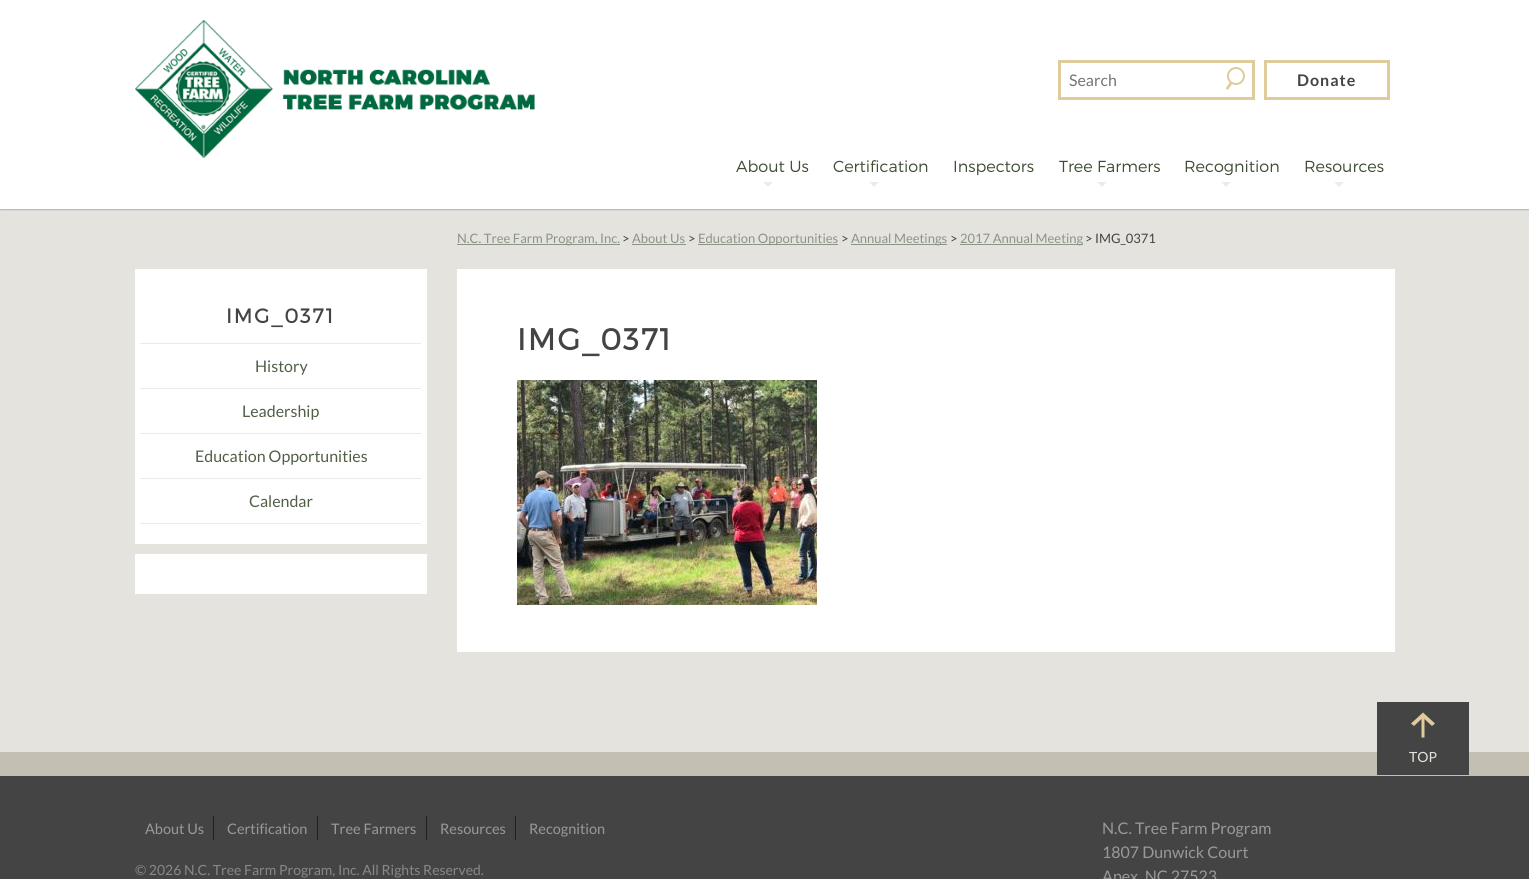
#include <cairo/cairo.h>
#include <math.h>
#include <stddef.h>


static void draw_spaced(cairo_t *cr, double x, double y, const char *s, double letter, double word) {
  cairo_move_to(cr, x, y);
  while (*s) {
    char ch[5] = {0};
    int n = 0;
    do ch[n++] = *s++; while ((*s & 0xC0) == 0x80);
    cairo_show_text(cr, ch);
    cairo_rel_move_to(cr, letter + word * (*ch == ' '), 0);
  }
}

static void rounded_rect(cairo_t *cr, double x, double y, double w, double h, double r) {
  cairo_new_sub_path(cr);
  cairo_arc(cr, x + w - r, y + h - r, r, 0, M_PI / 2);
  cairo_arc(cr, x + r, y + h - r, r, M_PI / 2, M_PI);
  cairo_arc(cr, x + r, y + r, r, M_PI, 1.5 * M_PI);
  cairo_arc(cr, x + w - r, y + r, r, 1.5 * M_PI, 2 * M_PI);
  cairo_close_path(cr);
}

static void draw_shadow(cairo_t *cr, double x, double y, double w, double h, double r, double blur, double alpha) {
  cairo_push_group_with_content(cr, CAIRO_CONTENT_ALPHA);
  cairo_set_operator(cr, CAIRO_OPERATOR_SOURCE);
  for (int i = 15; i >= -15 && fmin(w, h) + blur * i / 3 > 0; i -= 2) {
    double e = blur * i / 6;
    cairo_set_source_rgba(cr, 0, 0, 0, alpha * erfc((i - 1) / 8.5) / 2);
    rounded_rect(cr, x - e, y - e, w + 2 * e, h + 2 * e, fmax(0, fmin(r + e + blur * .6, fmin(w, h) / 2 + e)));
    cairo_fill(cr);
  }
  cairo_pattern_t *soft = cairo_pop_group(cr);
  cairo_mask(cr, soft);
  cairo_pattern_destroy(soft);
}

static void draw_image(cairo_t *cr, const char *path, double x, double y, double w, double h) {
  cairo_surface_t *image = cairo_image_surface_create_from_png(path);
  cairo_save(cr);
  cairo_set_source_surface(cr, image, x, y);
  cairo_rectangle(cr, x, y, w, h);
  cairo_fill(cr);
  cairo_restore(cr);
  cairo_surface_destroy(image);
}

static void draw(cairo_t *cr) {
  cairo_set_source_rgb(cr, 229 / 255.0, 227 / 255.0, 222 / 255.0);
  cairo_paint(cr);
  cairo_set_source_rgb(cr, 0, 0, 0);
  draw_shadow(cr, 0, 1, 1529, 209, 0, 0.5, 0.2);
  cairo_set_source_rgb(cr, 1, 1, 1);
  cairo_rectangle(cr, 0, 0, 1529, 209);
  cairo_fill(cr);
  draw_image(cr, "images/1.png", 135, 20, 400, 138);
  cairo_rectangle(cr, 1059.5, 61.5, 194, 37);
  cairo_set_source_rgb(cr, 224 / 255.0, 203 / 255.0, 155 / 255.0);
  cairo_set_line_width(cr, 3);
  cairo_stroke(cr);
  draw_image(cr, "images/2.png", 1226, 67, 19, 23);
  cairo_rectangle(cr, 1265.5, 61.5, 123, 37);
  cairo_stroke(cr);
  cairo_set_source_rgb(cr, 236 / 255.0, 236 / 255.0, 236 / 255.0);
  cairo_new_path(cr);
  cairo_move_to(cr, 763, 182);
  cairo_line_to(cr, 773, 182);
  cairo_line_to(cr, 768, 187);
  cairo_close_path(cr);
  cairo_fill(cr);
  cairo_new_path(cr);
  cairo_move_to(cr, 869, 182);
  cairo_line_to(cr, 879, 182);
  cairo_line_to(cr, 874, 187);
  cairo_close_path(cr);
  cairo_fill(cr);
  cairo_new_path(cr);
  cairo_move_to(cr, 1097, 182);
  cairo_line_to(cr, 1107, 182);
  cairo_line_to(cr, 1102, 187);
  cairo_close_path(cr);
  cairo_fill(cr);
  cairo_new_path(cr);
  cairo_move_to(cr, 1221, 182);
  cairo_line_to(cr, 1231, 182);
  cairo_line_to(cr, 1226, 187);
  cairo_close_path(cr);
  cairo_fill(cr);
  cairo_new_path(cr);
  cairo_move_to(cr, 1334, 182);
  cairo_line_to(cr, 1344, 182);
  cairo_line_to(cr, 1339, 187);
  cairo_close_path(cr);
  cairo_fill(cr);
  cairo_set_source_rgb(cr, 139 / 255.0, 148 / 255.0, 133 / 255.0);
  cairo_rectangle(cr, 457, 244, 163, 1);
  cairo_fill(cr);
  cairo_rectangle(cr, 632, 244, 54, 1);
  cairo_fill(cr);
  cairo_rectangle(cr, 698, 244, 140, 1);
  cairo_fill(cr);
  cairo_rectangle(cr, 851, 244, 96, 1);
  cairo_fill(cr);
  cairo_rectangle(cr, 960, 244, 123, 1);
  cairo_fill(cr);
  cairo_set_source_rgb(cr, 1, 1, 1);
  cairo_rectangle(cr, 135, 269, 292, 275);
  cairo_fill(cr);
  cairo_set_source_rgb(cr, 234 / 255.0, 234 / 255.0, 234 / 255.0);
  cairo_rectangle(cr, 140, 343, 281, 1);
  cairo_fill(cr);
  cairo_rectangle(cr, 140, 388, 281, 1);
  cairo_fill(cr);
  cairo_rectangle(cr, 140, 433, 281, 1);
  cairo_fill(cr);
  cairo_rectangle(cr, 140, 478, 281, 1);
  cairo_fill(cr);
  cairo_rectangle(cr, 140, 523, 281, 1);
  cairo_fill(cr);
  cairo_set_source_rgb(cr, 1, 1, 1);
  cairo_rectangle(cr, 135, 554, 292, 40);
  cairo_fill(cr);
  cairo_rectangle(cr, 457, 269, 938, 383);
  cairo_fill(cr);
  draw_image(cr, "images/3.png", 517, 380, 300, 225);
  cairo_set_source_rgb(cr, 195 / 255.0, 191 / 255.0, 179 / 255.0);
  cairo_rectangle(cr, 0, 752, 1529, 24);
  cairo_fill(cr);
  cairo_set_source_rgb(cr, 68 / 255.0, 68 / 255.0, 68 / 255.0);
  cairo_rectangle(cr, 1377, 702, 92, 73);
  cairo_fill(cr);
  cairo_set_source_rgb(cr, 224 / 255.0, 203 / 255.0, 155 / 255.0);
  cairo_set_fill_rule(cr, CAIRO_FILL_RULE_EVEN_ODD);
  cairo_new_path(cr);
  cairo_move_to(cr, 1435, 723.5);
  cairo_line_to(cr, 1423, 712.5);
  cairo_line_to(cr, 1411, 723.5);
  cairo_line_to(cr, 1414, 726);
  cairo_line_to(cr, 1421.5, 719);
  cairo_line_to(cr, 1421.5, 737.5);
  cairo_line_to(cr, 1424.5, 737.5);
  cairo_line_to(cr, 1424.5, 719);
  cairo_line_to(cr, 1432, 726);
  cairo_close_path(cr);
  cairo_fill(cr);
  cairo_set_source_rgb(cr, 68 / 255.0, 68 / 255.0, 68 / 255.0);
  cairo_rectangle(cr, 0, 776, 1529, 103);
  cairo_fill(cr);
  cairo_set_source_rgb(cr, 35 / 255.0, 31 / 255.0, 32 / 255.0);
  cairo_rectangle(cr, 213, 816, 1, 24);
  cairo_fill(cr);
  cairo_rectangle(cr, 317, 816, 1, 24);
  cairo_fill(cr);
  cairo_rectangle(cr, 426, 816, 1, 24);
  cairo_fill(cr);
  cairo_rectangle(cr, 515, 816, 1, 24);
  cairo_fill(cr);
  cairo_select_font_face(cr, "Lato", CAIRO_FONT_SLANT_NORMAL, CAIRO_FONT_WEIGHT_NORMAL);
  cairo_set_font_size(cr, 16);
  cairo_set_source_rgb(cr, 117 / 255.0, 117 / 255.0, 117 / 255.0);
  cairo_move_to(cr, 1069, 86);
  cairo_show_text(cr, "Search");
  cairo_select_font_face(cr, "Lato", CAIRO_FONT_SLANT_NORMAL, CAIRO_FONT_WEIGHT_BOLD);
  cairo_set_source_rgb(cr, 68 / 255.0, 68 / 255.0, 68 / 255.0);
  draw_spaced(cr, 1297, 86, "Donate", 1, 0);
  cairo_select_font_face(cr, "Montserrat Light", CAIRO_FONT_SLANT_NORMAL, CAIRO_FONT_WEIGHT_NORMAL);
  cairo_set_source_rgb(cr, 62 / 255.0, 77 / 255.0, 51 / 255.0);
  cairo_move_to(cr, 736, 172);
  cairo_show_text(cr, "About Us");
  cairo_move_to(cr, 833, 172);
  cairo_show_text(cr, "Certification");
  cairo_move_to(cr, 953, 172);
  cairo_show_text(cr, "Inspectors");
  cairo_move_to(cr, 1059, 172);
  cairo_show_text(cr, "Tree Farmers");
  cairo_move_to(cr, 1184, 172);
  cairo_show_text(cr, "Recognition");
  cairo_move_to(cr, 1304, 172);
  cairo_show_text(cr, "Resources");
  cairo_select_font_face(cr, "Lato", CAIRO_FONT_SLANT_NORMAL, CAIRO_FONT_WEIGHT_NORMAL);
  cairo_set_font_size(cr, 13);
  cairo_set_source_rgb(cr, 139 / 255.0, 148 / 255.0, 133 / 255.0);
  cairo_move_to(cr, 457, 243);
  cairo_show_text(cr, "N.C. Tree Farm Program, Inc.");
  cairo_set_source_rgb(cr, 68 / 255.0, 68 / 255.0, 68 / 255.0);
  cairo_move_to(cr, 622, 243);
  cairo_show_text(cr, ">");
  cairo_set_source_rgb(cr, 139 / 255.0, 148 / 255.0, 133 / 255.0);
  cairo_move_to(cr, 632, 243);
  cairo_show_text(cr, "About Us");
  cairo_set_source_rgb(cr, 68 / 255.0, 68 / 255.0, 68 / 255.0);
  cairo_move_to(cr, 688, 243);
  cairo_show_text(cr, ">");
  cairo_set_source_rgb(cr, 139 / 255.0, 148 / 255.0, 133 / 255.0);
  cairo_move_to(cr, 698, 243);
  cairo_show_text(cr, "Education Opportunities");
  cairo_set_source_rgb(cr, 68 / 255.0, 68 / 255.0, 68 / 255.0);
  cairo_move_to(cr, 841, 243);
  cairo_show_text(cr, ">");
  cairo_set_source_rgb(cr, 139 / 255.0, 148 / 255.0, 133 / 255.0);
  cairo_move_to(cr, 851, 243);
  cairo_show_text(cr, "Annual Meetings");
  cairo_set_source_rgb(cr, 68 / 255.0, 68 / 255.0, 68 / 255.0);
  cairo_move_to(cr, 950, 243);
  cairo_show_text(cr, ">");
  cairo_set_source_rgb(cr, 139 / 255.0, 148 / 255.0, 133 / 255.0);
  cairo_move_to(cr, 960, 243);
  cairo_show_text(cr, "2017 Annual Meeting");
  cairo_set_source_rgb(cr, 68 / 255.0, 68 / 255.0, 68 / 255.0);
  cairo_move_to(cr, 1085, 243);
  cairo_show_text(cr, "> IMG_0371");
  cairo_select_font_face(cr, "Montserrat", CAIRO_FONT_SLANT_NORMAL, CAIRO_FONT_WEIGHT_BOLD);
  cairo_set_font_size(cr, 20);
  draw_spaced(cr, 226, 323, "IMG_0371", 2, 0);
  cairo_select_font_face(cr, "Lato", CAIRO_FONT_SLANT_NORMAL, CAIRO_FONT_WEIGHT_NORMAL);
  cairo_set_font_size(cr, 16);
  cairo_set_source_rgb(cr, 81 / 255.0, 95 / 255.0, 71 / 255.0);
  cairo_move_to(cr, 255, 372);
  cairo_show_text(cr, "History");
  cairo_move_to(cr, 242, 417);
  cairo_show_text(cr, "Leadership");
  cairo_move_to(cr, 195, 462);
  cairo_show_text(cr, "Education Opportunities");
  cairo_move_to(cr, 249, 507);
  cairo_show_text(cr, "Calendar");
  cairo_select_font_face(cr, "Montserrat", CAIRO_FONT_SLANT_NORMAL, CAIRO_FONT_WEIGHT_BOLD);
  cairo_set_font_size(cr, 30);
  cairo_set_source_rgb(cr, 68 / 255.0, 68 / 255.0, 68 / 255.0);
  draw_spaced(cr, 517, 350, "IMG_0371", 2, 0);
  cairo_select_font_face(cr, "Lato", CAIRO_FONT_SLANT_NORMAL, CAIRO_FONT_WEIGHT_NORMAL);
  cairo_set_font_size(cr, 14);
  cairo_set_source_rgb(cr, 229 / 255.0, 227 / 255.0, 222 / 255.0);
  cairo_move_to(cr, 1409, 762);
  cairo_show_text(cr, "TOP");
  cairo_set_font_size(cr, 14.5);
  cairo_set_source_rgb(cr, 153 / 255.0, 153 / 255.0, 153 / 255.0);
  cairo_move_to(cr, 145, 834);
  cairo_show_text(cr, "About Us");
  cairo_move_to(cr, 227, 834);
  cairo_show_text(cr, "Certification");
  cairo_move_to(cr, 331, 834);
  cairo_show_text(cr, "Tree Farmers");
  cairo_move_to(cr, 440, 834);
  cairo_show_text(cr, "Resources");
  cairo_move_to(cr, 529, 834);
  cairo_show_text(cr, "Recognition");
  cairo_set_font_size(cr, 14);
  cairo_set_source_rgb(cr, 136 / 255.0, 136 / 255.0, 136 / 255.0);
  cairo_move_to(cr, 135, 875);
  cairo_show_text(cr, "© 2026 N.C. Tree Farm Program, Inc. All Rights Reserved.");
  cairo_set_font_size(cr, 16);
  cairo_set_source_rgb(cr, 153 / 255.0, 153 / 255.0, 153 / 255.0);
  cairo_move_to(cr, 1102, 834);
  cairo_show_text(cr, "N.C. Tree Farm Program");
  cairo_move_to(cr, 1102, 858);
  cairo_show_text(cr, "1807 Dunwick Court");
  cairo_move_to(cr, 1102, 882);
  cairo_show_text(cr, "Apex, NC 27523");
}

int main(void) {
  cairo_surface_t *surface = cairo_image_surface_create(CAIRO_FORMAT_RGB24, 1529, 879);
  cairo_t *cr = cairo_create(surface);
  cairo_font_options_t *options = cairo_font_options_create();
  cairo_font_options_set_hint_metrics(options, CAIRO_HINT_METRICS_OFF);
  cairo_font_options_set_hint_style(options, CAIRO_HINT_STYLE_NONE);
  cairo_set_font_options(cr, options);
  cairo_set_miter_limit(cr, 4);
  draw(cr);
  cairo_surface_write_to_png(surface, "out.png");
  cairo_font_options_destroy(options);
  cairo_destroy(cr);
  cairo_surface_destroy(surface);
  return 0;
}
